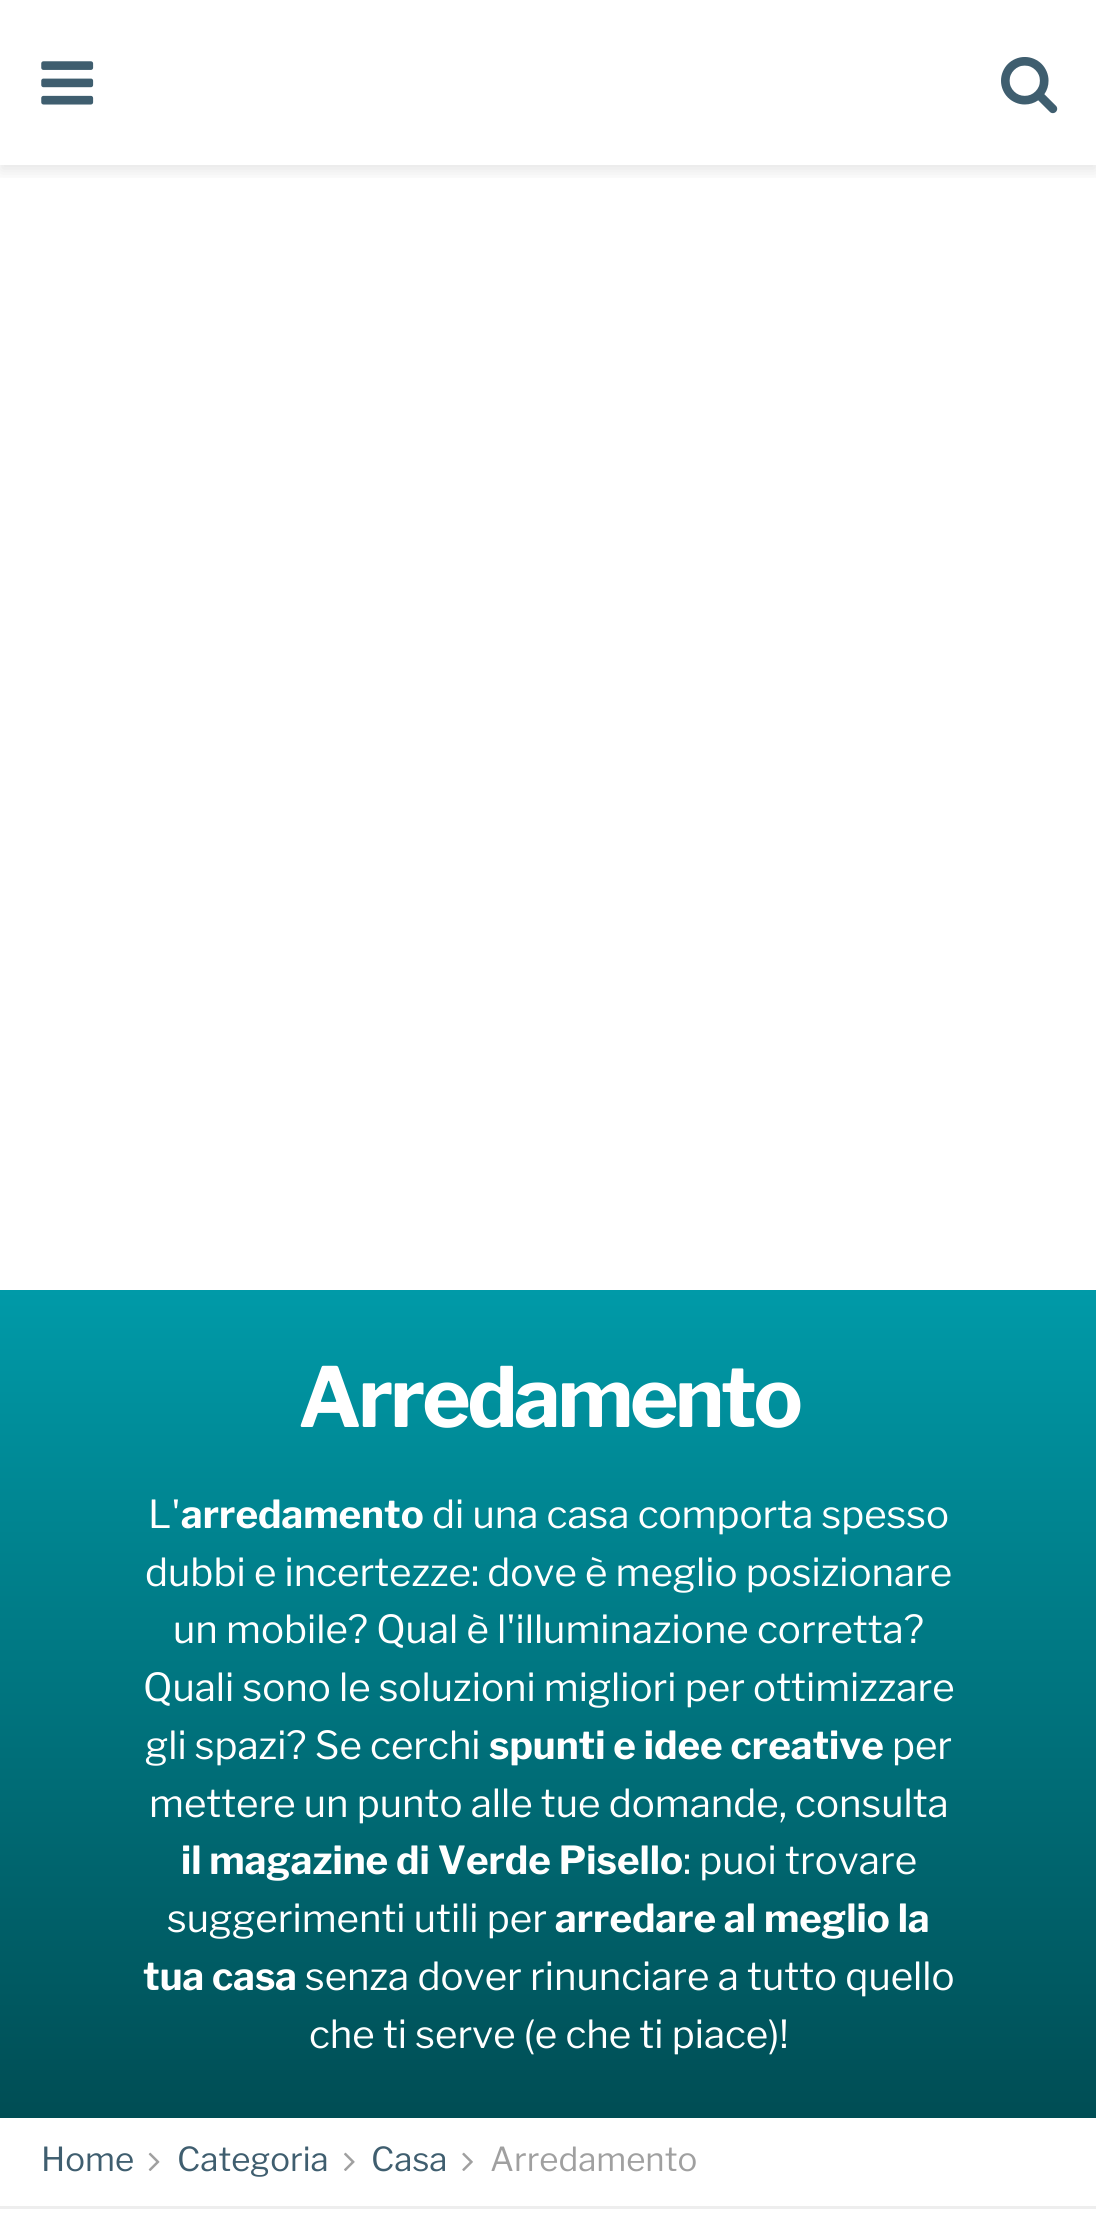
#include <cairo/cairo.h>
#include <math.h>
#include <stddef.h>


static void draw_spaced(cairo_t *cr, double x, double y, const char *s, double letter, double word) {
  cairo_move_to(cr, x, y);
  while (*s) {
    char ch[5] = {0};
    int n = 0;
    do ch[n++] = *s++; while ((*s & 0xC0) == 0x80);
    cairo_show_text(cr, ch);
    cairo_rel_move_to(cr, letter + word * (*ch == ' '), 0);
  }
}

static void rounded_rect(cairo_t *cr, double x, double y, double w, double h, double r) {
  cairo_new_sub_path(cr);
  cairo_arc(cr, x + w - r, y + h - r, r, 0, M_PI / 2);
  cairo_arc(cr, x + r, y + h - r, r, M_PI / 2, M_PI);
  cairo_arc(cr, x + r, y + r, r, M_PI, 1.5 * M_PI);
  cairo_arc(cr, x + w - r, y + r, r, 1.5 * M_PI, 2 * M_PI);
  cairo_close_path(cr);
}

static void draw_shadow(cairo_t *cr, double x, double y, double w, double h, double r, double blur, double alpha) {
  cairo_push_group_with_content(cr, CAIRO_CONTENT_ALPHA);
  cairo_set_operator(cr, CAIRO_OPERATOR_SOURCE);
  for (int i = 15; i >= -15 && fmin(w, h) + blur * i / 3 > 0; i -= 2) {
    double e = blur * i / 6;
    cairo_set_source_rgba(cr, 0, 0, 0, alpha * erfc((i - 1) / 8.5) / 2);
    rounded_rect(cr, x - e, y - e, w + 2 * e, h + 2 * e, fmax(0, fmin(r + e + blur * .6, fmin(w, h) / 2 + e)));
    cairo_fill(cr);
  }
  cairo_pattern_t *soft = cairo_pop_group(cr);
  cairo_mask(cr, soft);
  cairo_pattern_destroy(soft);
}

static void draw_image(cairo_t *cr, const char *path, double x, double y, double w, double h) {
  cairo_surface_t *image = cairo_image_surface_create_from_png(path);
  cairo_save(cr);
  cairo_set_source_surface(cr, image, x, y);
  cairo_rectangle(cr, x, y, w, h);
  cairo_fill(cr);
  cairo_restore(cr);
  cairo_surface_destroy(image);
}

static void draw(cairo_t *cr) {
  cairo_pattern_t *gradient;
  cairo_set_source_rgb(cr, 1, 1, 1);
  cairo_paint(cr);
  cairo_save(cr);
  cairo_rectangle(cr, 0, 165, 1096, 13);
  cairo_clip(cr);
  cairo_set_source_rgb(cr, 0, 0, 0);
  draw_shadow(cr, 0, 6, 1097, 165, 0, 8, 0.1);
  cairo_restore(cr);
  draw_image(cr, "images/1.png", 41, 61, 53, 44);
  draw_image(cr, "images/2.png", 1001, 57, 57, 57);
  gradient = cairo_pattern_create_linear(549, 1290, 549, 2118);
  cairo_pattern_add_color_stop_rgba(gradient, 0, 0, 154 / 255.0, 168 / 255.0, 1);
  cairo_pattern_add_color_stop_rgba(gradient, 1, 0, 77 / 255.0, 84 / 255.0, 1);
  cairo_set_source(cr, gradient);
  cairo_pattern_destroy(gradient);
  cairo_rectangle(cr, 0, 1290, 1096, 828);
  cairo_fill(cr);
  cairo_set_source_rgb(cr, 238 / 255.0, 238 / 255.0, 238 / 255.0);
  cairo_rectangle(cr, 0, 2206, 1096, 3);
  cairo_fill(cr);
  draw_image(cr, "images/3.png", 148, 2152, 12, 19);
  draw_image(cr, "images/4.png", 344, 2152, 11, 19);
  draw_image(cr, "images/5.png", 462, 2152, 11, 19);
  cairo_select_font_face(cr, "Libre Franklin", CAIRO_FONT_SLANT_NORMAL, CAIRO_FONT_WEIGHT_BOLD);
  cairo_set_font_size(cr, 82.5);
  cairo_set_source_rgb(cr, 1, 1, 1);
  draw_spaced(cr, 298, 1427, "Arredamento", -3.25, 0);
  cairo_select_font_face(cr, "Libre Franklin", CAIRO_FONT_SLANT_NORMAL, CAIRO_FONT_WEIGHT_NORMAL);
  cairo_set_font_size(cr, 38.5);
  cairo_move_to(cr, 148, 1528);
  cairo_show_text(cr, "L'");
  cairo_select_font_face(cr, "Libre Franklin", CAIRO_FONT_SLANT_NORMAL, CAIRO_FONT_WEIGHT_BOLD);
  cairo_move_to(cr, 181, 1528);
  cairo_show_text(cr, "arredamento");
  cairo_select_font_face(cr, "Libre Franklin", CAIRO_FONT_SLANT_NORMAL, CAIRO_FONT_WEIGHT_NORMAL);
  cairo_move_to(cr, 432, 1528);
  cairo_show_text(cr, "di una casa comporta spesso");
  cairo_move_to(cr, 145, 1586);
  cairo_show_text(cr, "dubbi e incertezze: dove è meglio posizionare");
  cairo_move_to(cr, 173, 1643);
  cairo_show_text(cr, "un mobile? Qual è l'illuminazione corretta?");
  cairo_move_to(cr, 143, 1701);
  cairo_show_text(cr, "Quali sono le soluzioni migliori per ottimizzare");
  cairo_move_to(cr, 145, 1759);
  cairo_show_text(cr, "gli spazi? Se cerchi");
  cairo_select_font_face(cr, "Libre Franklin", CAIRO_FONT_SLANT_NORMAL, CAIRO_FONT_WEIGHT_BOLD);
  cairo_move_to(cr, 489, 1759);
  cairo_show_text(cr, "spunti e idee creative");
  cairo_select_font_face(cr, "Libre Franklin", CAIRO_FONT_SLANT_NORMAL, CAIRO_FONT_WEIGHT_NORMAL);
  cairo_move_to(cr, 892, 1759);
  cairo_show_text(cr, "per");
  cairo_move_to(cr, 149, 1817);
  cairo_show_text(cr, "mettere un punto alle tue domande, consulta");
  cairo_select_font_face(cr, "Libre Franklin", CAIRO_FONT_SLANT_NORMAL, CAIRO_FONT_WEIGHT_BOLD);
  cairo_move_to(cr, 181, 1874);
  cairo_show_text(cr, "il magazine di Verde Pisello");
  cairo_select_font_face(cr, "Libre Franklin", CAIRO_FONT_SLANT_NORMAL, CAIRO_FONT_WEIGHT_NORMAL);
  cairo_move_to(cr, 683, 1874);
  cairo_show_text(cr, ": puoi trovare");
  cairo_move_to(cr, 167, 1932);
  cairo_show_text(cr, "suggerimenti utili per");
  cairo_select_font_face(cr, "Libre Franklin", CAIRO_FONT_SLANT_NORMAL, CAIRO_FONT_WEIGHT_BOLD);
  cairo_move_to(cr, 555, 1932);
  cairo_show_text(cr, "arredare al meglio la");
  cairo_move_to(cr, 143, 1990);
  cairo_show_text(cr, "tua casa");
  cairo_select_font_face(cr, "Libre Franklin", CAIRO_FONT_SLANT_NORMAL, CAIRO_FONT_WEIGHT_NORMAL);
  cairo_move_to(cr, 305, 1990);
  cairo_show_text(cr, "senza dover rinunciare a tutto quello");
  cairo_move_to(cr, 309, 2048);
  cairo_show_text(cr, "che ti serve (e che ti piace)!");
  cairo_set_font_size(cr, 33);
  cairo_set_source_rgb(cr, 63 / 255.0, 94 / 255.0, 111 / 255.0);
  cairo_move_to(cr, 41, 2171);
  cairo_show_text(cr, "Home");
  cairo_move_to(cr, 177, 2171);
  cairo_show_text(cr, "Categoria");
  cairo_move_to(cr, 371, 2171);
  cairo_show_text(cr, "Casa");
  cairo_set_source_rgb(cr, 160 / 255.0, 160 / 255.0, 160 / 255.0);
  cairo_move_to(cr, 490, 2171);
  cairo_show_text(cr, "Arredamento");
}

int main(void) {
  cairo_surface_t *surface = cairo_image_surface_create(CAIRO_FORMAT_RGB24, 1096, 2220);
  cairo_t *cr = cairo_create(surface);
  cairo_font_options_t *options = cairo_font_options_create();
  cairo_font_options_set_hint_metrics(options, CAIRO_HINT_METRICS_OFF);
  cairo_font_options_set_hint_style(options, CAIRO_HINT_STYLE_NONE);
  cairo_set_font_options(cr, options);
  cairo_set_miter_limit(cr, 4);
  draw(cr);
  cairo_surface_write_to_png(surface, "out.png");
  cairo_font_options_destroy(options);
  cairo_destroy(cr);
  cairo_surface_destroy(surface);
  return 0;
}
